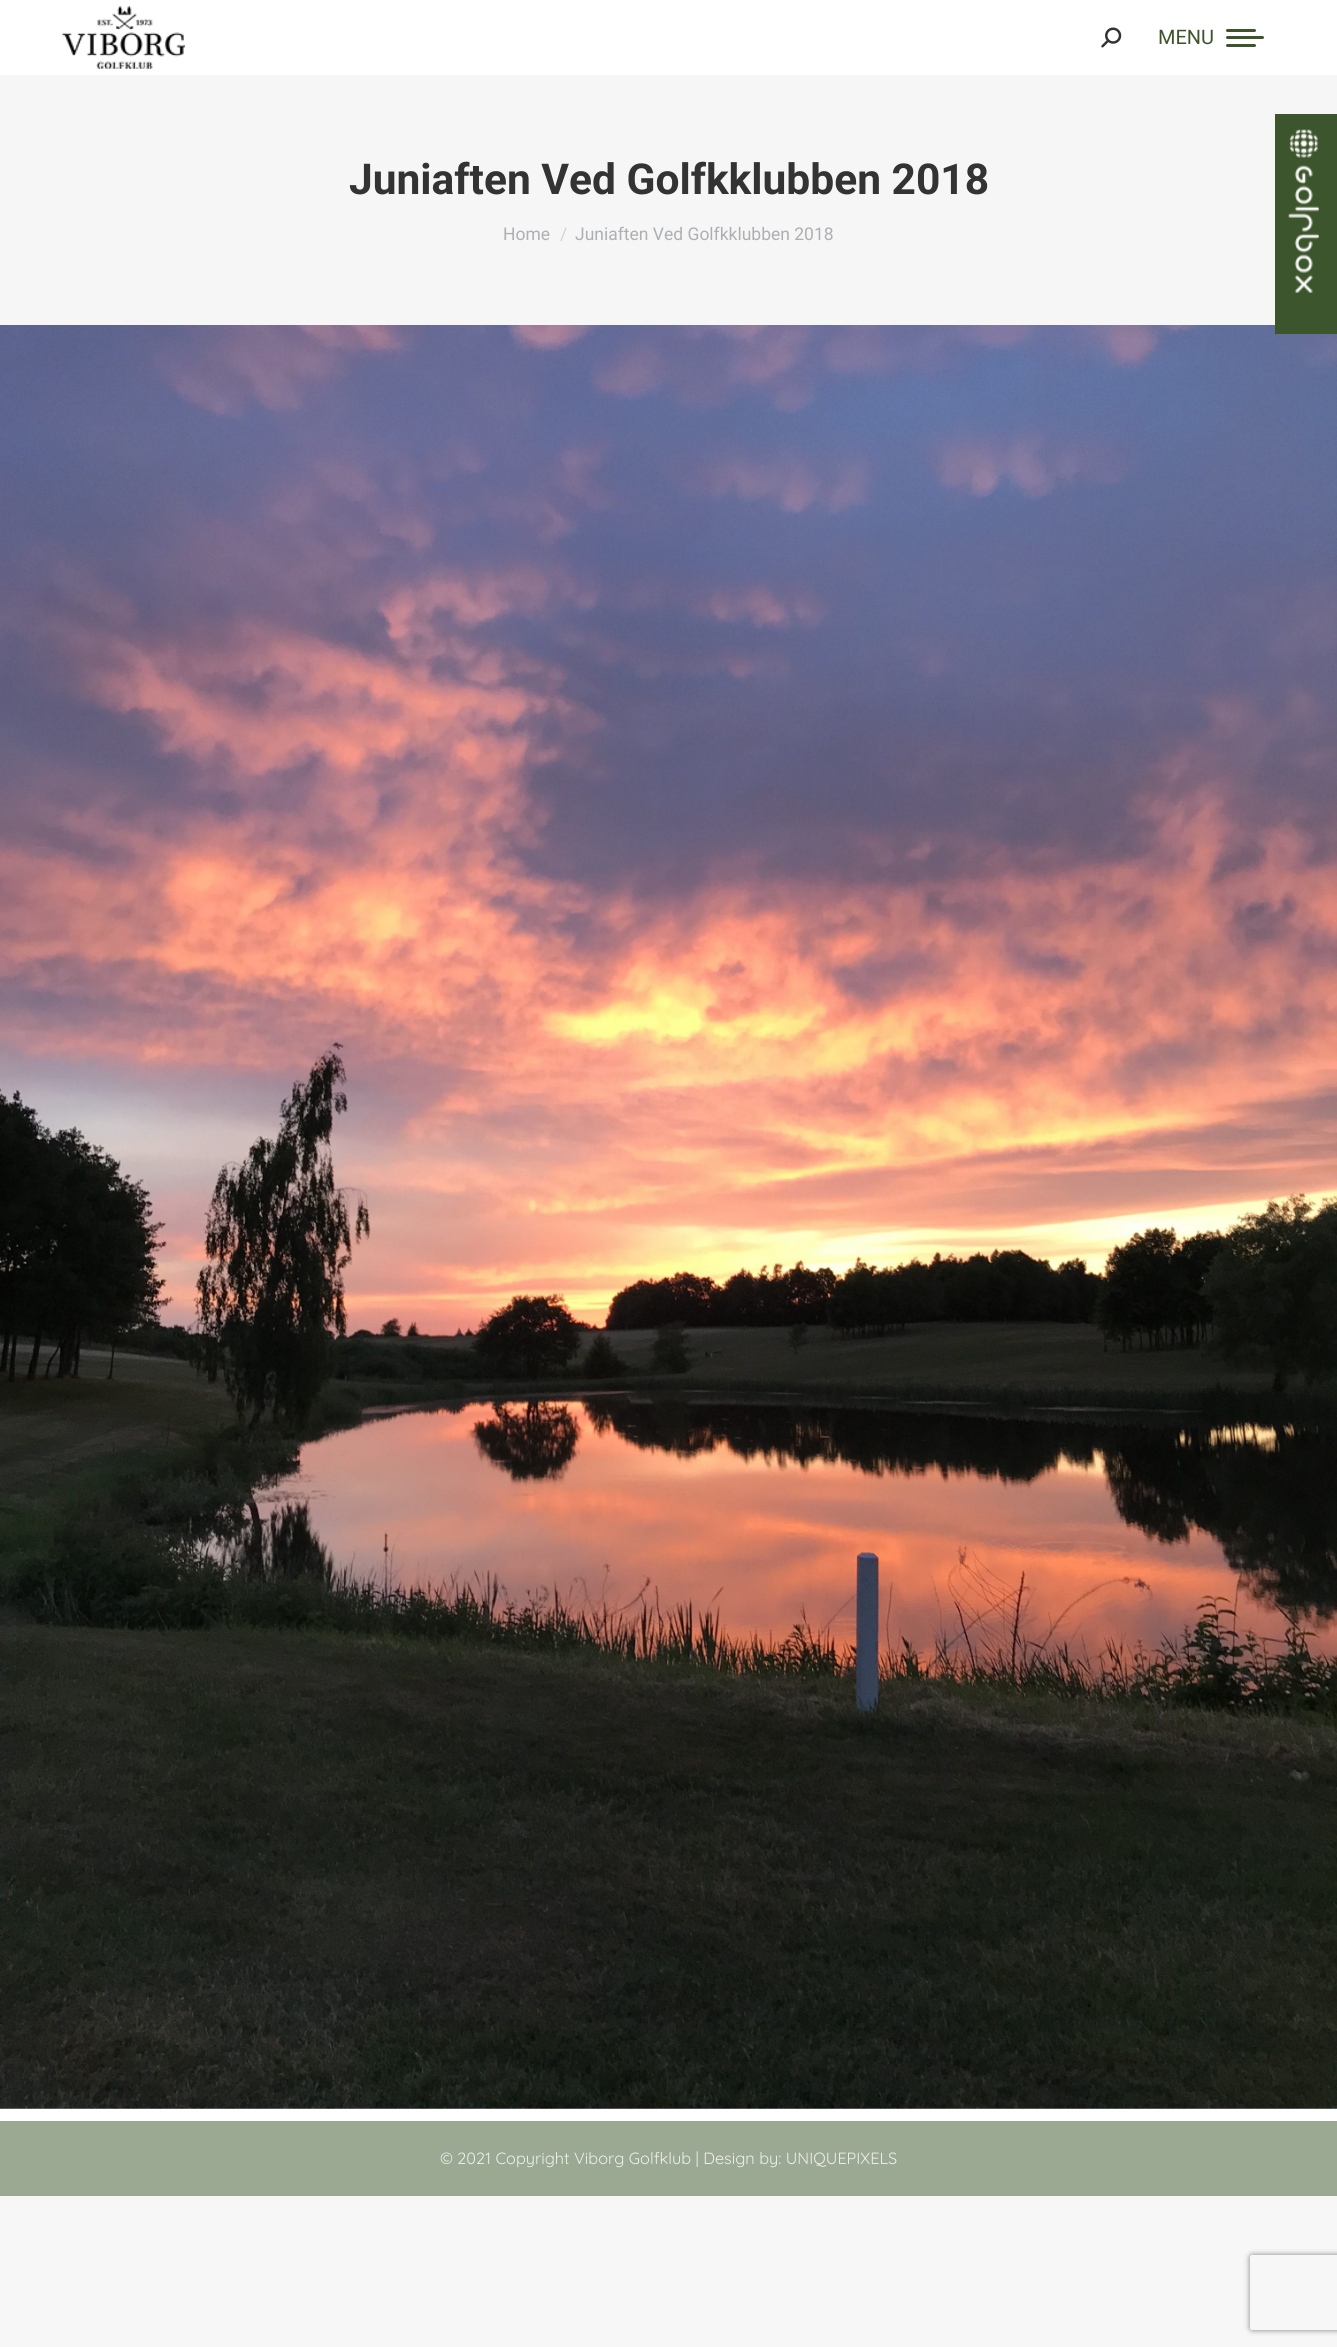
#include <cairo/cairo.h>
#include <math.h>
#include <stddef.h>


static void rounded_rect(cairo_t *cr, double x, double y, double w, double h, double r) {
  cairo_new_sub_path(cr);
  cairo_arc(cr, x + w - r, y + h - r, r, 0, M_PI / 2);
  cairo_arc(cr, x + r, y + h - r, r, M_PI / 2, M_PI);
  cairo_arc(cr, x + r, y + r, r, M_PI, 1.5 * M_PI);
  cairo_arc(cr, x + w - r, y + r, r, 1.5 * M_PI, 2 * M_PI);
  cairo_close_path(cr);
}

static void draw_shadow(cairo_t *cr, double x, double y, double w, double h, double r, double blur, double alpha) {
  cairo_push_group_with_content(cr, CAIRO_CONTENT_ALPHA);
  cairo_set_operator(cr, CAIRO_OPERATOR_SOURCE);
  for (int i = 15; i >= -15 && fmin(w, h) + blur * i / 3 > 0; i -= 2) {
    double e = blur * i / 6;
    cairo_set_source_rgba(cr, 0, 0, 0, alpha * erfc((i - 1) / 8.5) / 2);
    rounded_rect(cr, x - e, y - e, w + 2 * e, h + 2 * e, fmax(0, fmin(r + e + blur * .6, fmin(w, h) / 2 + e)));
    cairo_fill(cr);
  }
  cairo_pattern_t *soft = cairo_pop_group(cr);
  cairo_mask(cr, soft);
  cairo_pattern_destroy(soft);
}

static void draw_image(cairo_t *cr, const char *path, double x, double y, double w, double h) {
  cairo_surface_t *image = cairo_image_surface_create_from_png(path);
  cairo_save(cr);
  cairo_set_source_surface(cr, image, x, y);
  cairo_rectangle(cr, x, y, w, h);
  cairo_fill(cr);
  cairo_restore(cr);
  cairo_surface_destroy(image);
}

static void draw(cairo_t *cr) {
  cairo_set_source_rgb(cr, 247 / 255.0, 247 / 255.0, 247 / 255.0);
  cairo_paint(cr);
  cairo_set_source_rgb(cr, 1, 1, 1);
  cairo_rectangle(cr, 0, 0, 1337, 2121);
  cairo_fill(cr);
  draw_image(cr, "images/1.png", 62, 6, 123, 63);
  draw_image(cr, "images/2.png", 1101, 27, 21, 21);
  cairo_set_source_rgb(cr, 61 / 255.0, 85 / 255.0, 44 / 255.0);
  rounded_rect(cr, 1226, 29, 30, 3, 1.5);
  cairo_fill(cr);
  rounded_rect(cr, 1226, 36, 38, 3, 1.5);
  cairo_fill(cr);
  rounded_rect(cr, 1226, 44, 30, 3, 1.5);
  cairo_fill(cr);
  cairo_set_source_rgb(cr, 246 / 255.0, 246 / 255.0, 246 / 255.0);
  cairo_rectangle(cr, 0, 75, 1337, 250);
  cairo_fill(cr);
  draw_image(cr, "images/3.png", 0, 325, 1337, 1784);
  cairo_set_source_rgb(cr, 155 / 255.0, 168 / 255.0, 146 / 255.0);
  cairo_rectangle(cr, 0, 2121, 1337, 75);
  cairo_fill(cr);
  cairo_set_source_rgb(cr, 61 / 255.0, 85 / 255.0, 44 / 255.0);
  cairo_rectangle(cr, 1275, 114, 62, 220);
  cairo_fill(cr);
  draw_image(cr, "images/4.png", 1288, 129, 31, 164);
  cairo_save(cr);
  cairo_set_fill_rule(cr, CAIRO_FILL_RULE_EVEN_ODD);
  cairo_new_path(cr);
  cairo_move_to(cr, 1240, 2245);
  cairo_line_to(cr, 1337, 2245);
  cairo_line_to(cr, 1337, 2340);
  cairo_line_to(cr, 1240, 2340);
  cairo_close_path(cr);
  cairo_move_to(cr, 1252.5, 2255);
  cairo_line_to(cr, 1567.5, 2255);
  cairo_curve_to(cr, 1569, 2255, 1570, 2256, 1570, 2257.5);
  cairo_line_to(cr, 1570, 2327.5);
  cairo_curve_to(cr, 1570, 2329, 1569, 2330, 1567.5, 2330);
  cairo_line_to(cr, 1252.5, 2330);
  cairo_curve_to(cr, 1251, 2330, 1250, 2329, 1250, 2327.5);
  cairo_line_to(cr, 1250, 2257.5);
  cairo_curve_to(cr, 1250, 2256, 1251, 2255, 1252.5, 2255);
  cairo_close_path(cr);
  cairo_clip(cr);
  cairo_set_source_rgb(cr, 128 / 255.0, 128 / 255.0, 128 / 255.0);
  draw_shadow(cr, 1250, 2255, 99, 75, 2.5, 3, 1);
  cairo_restore(cr);
  cairo_select_font_face(cr, "Roboto", CAIRO_FONT_SLANT_NORMAL, CAIRO_FONT_WEIGHT_NORMAL);
  cairo_set_font_size(cr, 20);
  cairo_move_to(cr, 1158, 44);
  cairo_show_text(cr, "MENU");
  cairo_select_font_face(cr, "Roboto", CAIRO_FONT_SLANT_NORMAL, CAIRO_FONT_WEIGHT_BOLD);
  cairo_set_font_size(cr, 42.5);
  cairo_set_source_rgb(cr, 51 / 255.0, 51 / 255.0, 51 / 255.0);
  cairo_move_to(cr, 349, 194);
  cairo_show_text(cr, "Juniaften Ved Golfkklubben 2018");
  cairo_select_font_face(cr, "Roboto", CAIRO_FONT_SLANT_NORMAL, CAIRO_FONT_WEIGHT_NORMAL);
  cairo_set_font_size(cr, 17.5);
  cairo_set_source_rgb(cr, 173 / 255.0, 175 / 255.0, 179 / 255.0);
  cairo_move_to(cr, 503, 240);
  cairo_show_text(cr, "Home");
  cairo_set_source_rgb(cr, 210 / 255.0, 211 / 255.0, 213 / 255.0);
  cairo_move_to(cr, 560, 240);
  cairo_show_text(cr, "/");
  cairo_set_source_rgb(cr, 173 / 255.0, 175 / 255.0, 179 / 255.0);
  cairo_move_to(cr, 575, 240);
  cairo_show_text(cr, "Juniaften Ved Golfkklubben 2018");
  cairo_select_font_face(cr, "Quicksand", CAIRO_FONT_SLANT_NORMAL, CAIRO_FONT_WEIGHT_NORMAL);
  cairo_set_font_size(cr, 16.25);
  cairo_set_source_rgb(cr, 238 / 255.0, 238 / 255.0, 238 / 255.0);
  cairo_move_to(cr, 440, 2164);
  cairo_show_text(cr, "© 2021 Copyright Viborg Golfklub | Design by: UNIQUEPIXELS");
}

int main(void) {
  cairo_surface_t *surface = cairo_image_surface_create(CAIRO_FORMAT_RGB24, 1337, 2347);
  cairo_t *cr = cairo_create(surface);
  cairo_font_options_t *options = cairo_font_options_create();
  cairo_font_options_set_hint_metrics(options, CAIRO_HINT_METRICS_OFF);
  cairo_font_options_set_hint_style(options, CAIRO_HINT_STYLE_NONE);
  cairo_set_font_options(cr, options);
  cairo_set_miter_limit(cr, 4);
  draw(cr);
  cairo_surface_write_to_png(surface, "out.png");
  cairo_font_options_destroy(options);
  cairo_destroy(cr);
  cairo_surface_destroy(surface);
  return 0;
}
